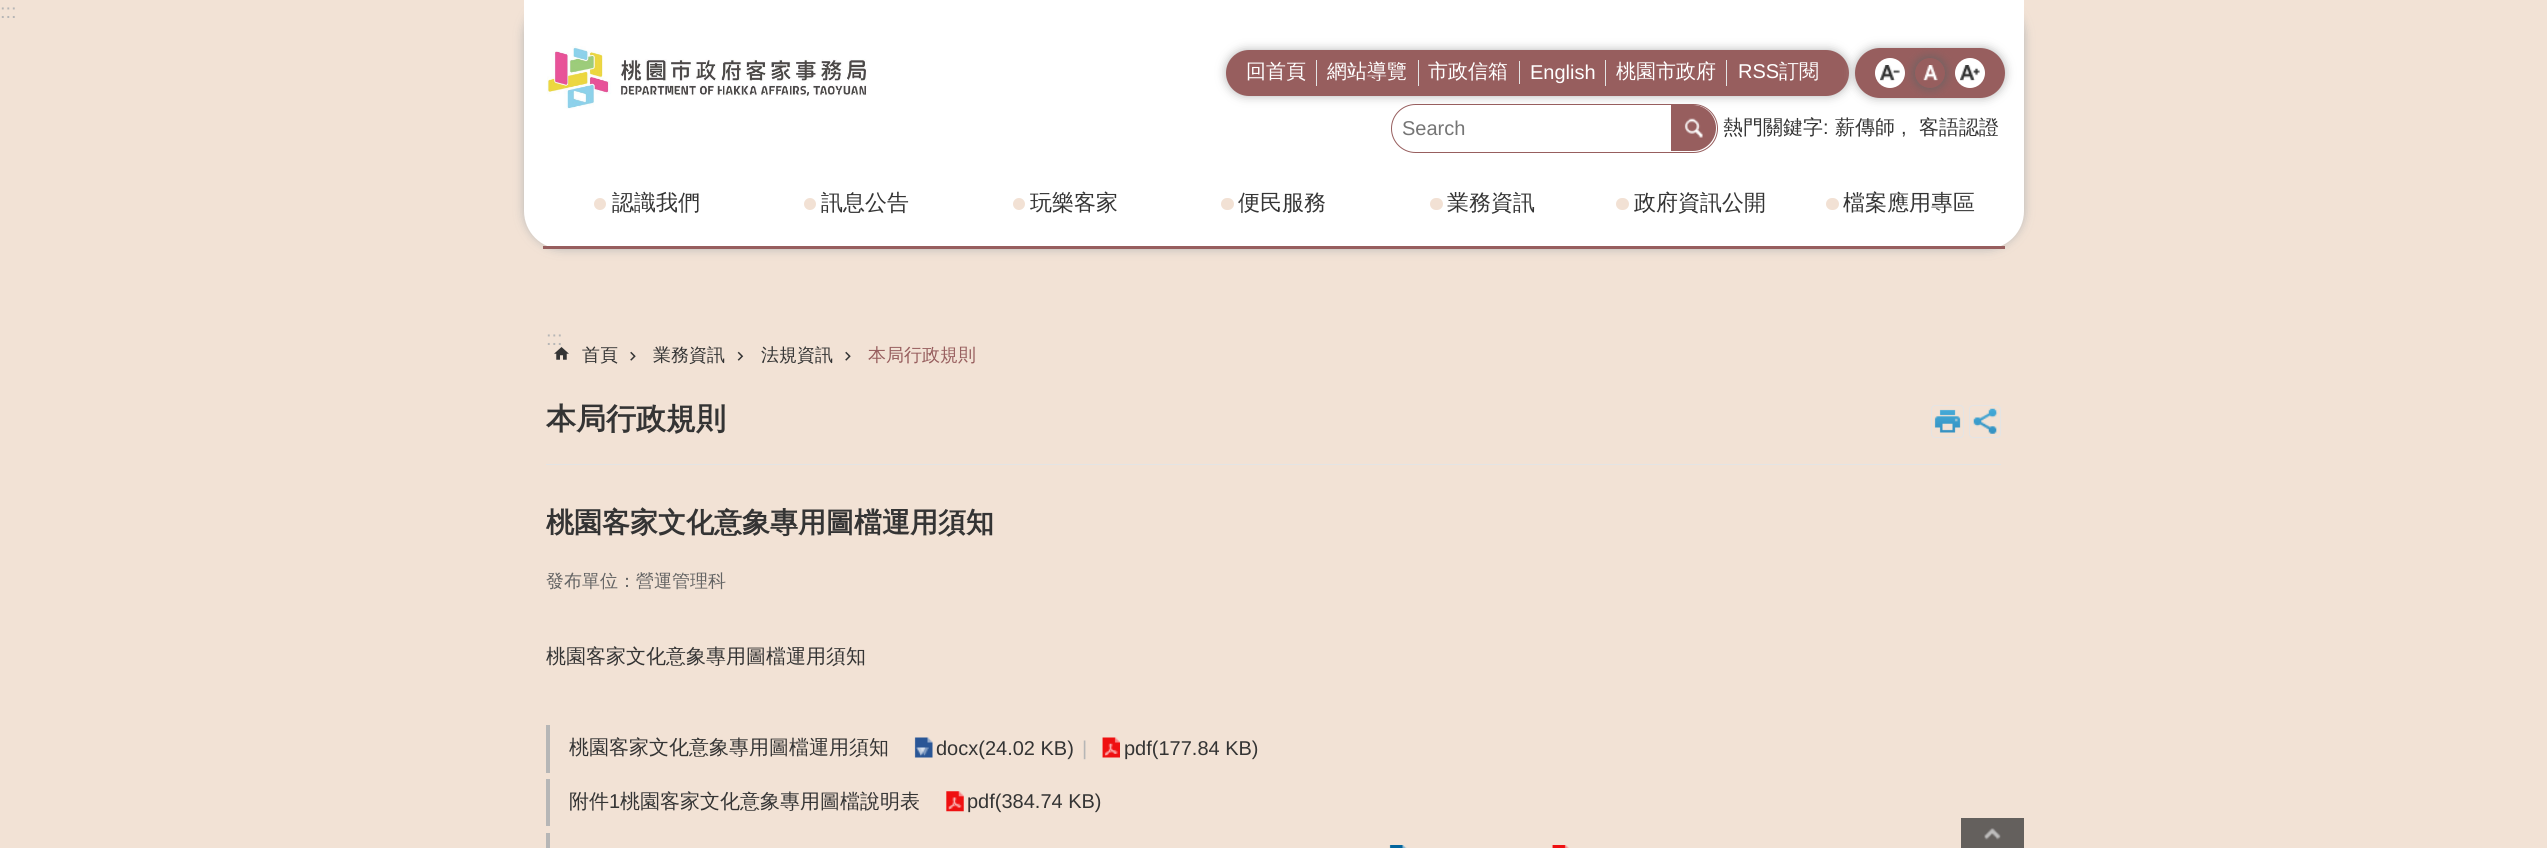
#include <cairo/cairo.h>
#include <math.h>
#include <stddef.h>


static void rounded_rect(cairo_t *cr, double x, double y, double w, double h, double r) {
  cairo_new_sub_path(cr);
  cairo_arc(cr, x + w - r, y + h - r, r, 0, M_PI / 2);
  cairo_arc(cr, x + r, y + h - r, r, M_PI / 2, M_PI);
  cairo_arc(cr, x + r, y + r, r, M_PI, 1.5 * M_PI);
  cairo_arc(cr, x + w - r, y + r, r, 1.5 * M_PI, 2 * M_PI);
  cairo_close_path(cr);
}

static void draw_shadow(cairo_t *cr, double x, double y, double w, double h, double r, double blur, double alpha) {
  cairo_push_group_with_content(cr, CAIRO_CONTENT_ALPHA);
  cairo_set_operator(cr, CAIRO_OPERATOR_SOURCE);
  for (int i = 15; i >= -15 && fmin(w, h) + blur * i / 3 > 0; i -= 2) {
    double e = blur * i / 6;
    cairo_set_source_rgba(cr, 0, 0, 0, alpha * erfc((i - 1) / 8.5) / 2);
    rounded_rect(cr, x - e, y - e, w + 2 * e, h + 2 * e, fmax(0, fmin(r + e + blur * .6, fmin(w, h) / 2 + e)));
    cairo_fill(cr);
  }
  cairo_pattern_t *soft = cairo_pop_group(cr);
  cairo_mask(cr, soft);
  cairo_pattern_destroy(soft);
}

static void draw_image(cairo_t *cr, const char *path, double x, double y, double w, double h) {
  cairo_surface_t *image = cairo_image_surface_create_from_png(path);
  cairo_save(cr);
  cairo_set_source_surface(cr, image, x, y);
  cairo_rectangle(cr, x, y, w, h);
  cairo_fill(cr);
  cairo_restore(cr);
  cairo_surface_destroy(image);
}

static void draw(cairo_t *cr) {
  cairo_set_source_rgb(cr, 242 / 255.0, 226 / 255.0, 213 / 255.0);
  cairo_paint(cr);
  cairo_set_source_rgb(cr, 182 / 255.0, 182 / 255.0, 182 / 255.0);
  draw_shadow(cr, 524, -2, 1500, 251, 38, 5, 1);
  cairo_set_source_rgb(cr, 1, 1, 1);
  cairo_new_path(cr);
  cairo_move_to(cr, 524, -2);
  cairo_line_to(cr, 2024, -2);
  cairo_line_to(cr, 2024, 211);
  cairo_curve_to(cr, 2024, 232, 2007, 249, 1986, 249);
  cairo_line_to(cr, 562, 249);
  cairo_curve_to(cr, 541, 249, 524, 232, 524, 211);
  cairo_close_path(cr);
  cairo_fill(cr);
  cairo_set_source_rgb(cr, 151 / 255.0, 94 / 255.0, 94 / 255.0);
  cairo_rectangle(cr, 543, 246, 1462, 3);
  cairo_fill(cr);
  draw_image(cr, "images/1.png", 547, 46, 320, 63);
  cairo_set_source_rgb(cr, 182 / 255.0, 182 / 255.0, 182 / 255.0);
  draw_shadow(cr, 1226, 50, 623, 46, 23, 5, 1);
  cairo_set_source_rgb(cr, 151 / 255.0, 94 / 255.0, 94 / 255.0);
  rounded_rect(cr, 1226, 50, 623, 46, 23);
  cairo_fill(cr);
  cairo_set_source_rgb(cr, 228 / 255.0, 228 / 255.0, 228 / 255.0);
  cairo_rectangle(cr, 1316, 60, 1, 26);
  cairo_fill(cr);
  cairo_rectangle(cr, 1418, 60, 1, 26);
  cairo_fill(cr);
  cairo_rectangle(cr, 1519, 61, 1, 23);
  cairo_fill(cr);
  cairo_rectangle(cr, 1605, 60, 1, 26);
  cairo_fill(cr);
  cairo_rectangle(cr, 1726, 60, 1, 26);
  cairo_fill(cr);
  cairo_set_source_rgb(cr, 182 / 255.0, 182 / 255.0, 182 / 255.0);
  draw_shadow(cr, 1855, 48, 150, 50, 25, 5, 1);
  cairo_set_source_rgb(cr, 151 / 255.0, 94 / 255.0, 94 / 255.0);
  rounded_rect(cr, 1855, 48, 150, 50, 25);
  cairo_fill(cr);
  cairo_set_source_rgb(cr, 1, 1, 1);
  cairo_arc(cr, 1890, 73, 15, 0, 2 * M_PI);
  cairo_fill(cr);
  draw_image(cr, "images/2.png", 1880, 65, 20, 16);
  cairo_set_source_rgb(cr, 100 / 255.0, 100 / 255.0, 100 / 255.0);
  draw_shadow(cr, 1915, 58, 30, 30, 15, 5, 1);
  cairo_set_source_rgb(cr, 151 / 255.0, 94 / 255.0, 94 / 255.0);
  cairo_arc(cr, 1930, 73, 15, 0, 2 * M_PI);
  cairo_fill(cr);
  draw_image(cr, "images/3.png", 1923, 65, 15, 16);
  cairo_set_source_rgb(cr, 1, 1, 1);
  cairo_arc(cr, 1970, 73, 15, 0, 2 * M_PI);
  cairo_fill(cr);
  draw_image(cr, "images/4.png", 1960, 65, 20, 16);
  rounded_rect(cr, 1391.5, 104.5, 326, 48, 24);
  cairo_fill_preserve(cr);
  cairo_set_source_rgb(cr, 151 / 255.0, 94 / 255.0, 94 / 255.0);
  cairo_set_line_width(cr, 1);
  cairo_stroke(cr);
  cairo_new_path(cr);
  cairo_move_to(cr, 1671, 105);
  cairo_line_to(cr, 1693, 105);
  cairo_curve_to(cr, 1705.5, 105, 1716, 115.5, 1716, 128);
  cairo_curve_to(cr, 1716, 140.5, 1705.5, 151, 1693, 151);
  cairo_line_to(cr, 1671, 151);
  cairo_close_path(cr);
  cairo_fill(cr);
  draw_image(cr, "images/5.png", 1684, 118, 19, 20);
  cairo_set_source_rgb(cr, 242 / 255.0, 225 / 255.0, 212 / 255.0);
  cairo_arc(cr, 600, 204, 6, 0, 2 * M_PI);
  cairo_fill(cr);
  cairo_arc(cr, 810, 204, 6, 0, 2 * M_PI);
  cairo_fill(cr);
  cairo_arc(cr, 1019, 204, 6, 0, 2 * M_PI);
  cairo_fill(cr);
  rounded_rect(cr, 1221, 198, 13, 12, 6);
  cairo_fill(cr);
  rounded_rect(cr, 1430, 198, 13, 12, 6);
  cairo_fill(cr);
  rounded_rect(cr, 1616, 198, 13, 12, 6);
  cairo_fill(cr);
  rounded_rect(cr, 1826, 198, 13, 12, 6);
  cairo_fill(cr);
  draw_image(cr, "images/6.png", 554, 347, 15, 13);
  draw_image(cr, "images/7.png", 630, 351, 6, 10);
  draw_image(cr, "images/8.png", 737, 351, 7, 10);
  draw_image(cr, "images/7.png", 845, 351, 6, 10);
  cairo_set_source_rgb(cr, 228 / 255.0, 228 / 255.0, 228 / 255.0);
  cairo_rectangle(cr, 546, 464, 1455, 1);
  cairo_fill(cr);
  draw_image(cr, "images/9.png", 1934, 409, 27, 24);
  rounded_rect(cr, 1931.5, 405.5, 32, 32, 3.5);
  cairo_stroke(cr);
  draw_image(cr, "images/10.png", 1973, 408, 25, 26);
  rounded_rect(cr, 1969.5, 405.5, 31, 32, 3.5);
  cairo_stroke(cr);
  cairo_set_source_rgb(cr, 182 / 255.0, 182 / 255.0, 182 / 255.0);
  cairo_rectangle(cr, 546, 725, 4, 48);
  cairo_fill(cr);
  draw_image(cr, "images/11.png", 914, 737, 19, 21);
  draw_image(cr, "images/12.png", 1102, 737, 18, 21);
  cairo_rectangle(cr, 546, 779, 4, 47);
  cairo_fill(cr);
  draw_image(cr, "images/13.png", 946, 791, 18, 21);
  cairo_rectangle(cr, 546, 833, 4, 15);
  cairo_fill(cr);
  draw_image(cr, "images/14.png", 1389, 845, 18, 3);
  draw_image(cr, "images/15.png", 1552, 845, 17, 3);
  cairo_set_source_rgb(cr, 100 / 255.0, 96 / 255.0, 93 / 255.0);
  cairo_rectangle(cr, 1961, 818, 63, 30);
  cairo_fill(cr);
  draw_image(cr, "images/16.png", 1984, 828, 17, 12);
  draw_image(cr, "images/17.png", 1984, 828, 17, 12);
  cairo_select_font_face(cr, "Liberation Sans", CAIRO_FONT_SLANT_NORMAL, CAIRO_FONT_WEIGHT_NORMAL);
  cairo_set_font_size(cr, 20);
  cairo_set_source_rgb(cr, 182 / 255.0, 182 / 255.0, 182 / 255.0);
  cairo_move_to(cr, 0, 18);
  cairo_show_text(cr, ":::");
  cairo_select_font_face(cr, "WenQuanYi Zen Hei Medium", CAIRO_FONT_SLANT_NORMAL, CAIRO_FONT_WEIGHT_NORMAL);
  cairo_set_source_rgb(cr, 1, 1, 1);
  cairo_move_to(cr, 1246, 78);
  cairo_show_text(cr, "回首頁");
  cairo_move_to(cr, 1327, 78);
  cairo_show_text(cr, "網站導覽");
  cairo_move_to(cr, 1428, 78);
  cairo_show_text(cr, "市政信箱");
  cairo_select_font_face(cr, "Liberation Sans", CAIRO_FONT_SLANT_NORMAL, CAIRO_FONT_WEIGHT_NORMAL);
  cairo_move_to(cr, 1530, 79);
  cairo_show_text(cr, "English");
  cairo_select_font_face(cr, "WenQuanYi Zen Hei Medium", CAIRO_FONT_SLANT_NORMAL, CAIRO_FONT_WEIGHT_NORMAL);
  cairo_move_to(cr, 1616, 78);
  cairo_show_text(cr, "桃園市政府");
  cairo_select_font_face(cr, "Liberation Sans", CAIRO_FONT_SLANT_NORMAL, CAIRO_FONT_WEIGHT_NORMAL);
  cairo_move_to(cr, 1738, 78);
  cairo_show_text(cr, "RSS");
  cairo_select_font_face(cr, "WenQuanYi Zen Hei Medium", CAIRO_FONT_SLANT_NORMAL, CAIRO_FONT_WEIGHT_NORMAL);
  cairo_move_to(cr, 1779, 78);
  cairo_show_text(cr, "訂閱");
  cairo_select_font_face(cr, "Liberation Sans", CAIRO_FONT_SLANT_NORMAL, CAIRO_FONT_WEIGHT_NORMAL);
  cairo_set_source_rgb(cr, 117 / 255.0, 117 / 255.0, 117 / 255.0);
  cairo_move_to(cr, 1402, 135);
  cairo_show_text(cr, "Search");
  cairo_select_font_face(cr, "WenQuanYi Zen Hei Medium", CAIRO_FONT_SLANT_NORMAL, CAIRO_FONT_WEIGHT_NORMAL);
  cairo_set_source_rgb(cr, 52 / 255.0, 52 / 255.0, 52 / 255.0);
  cairo_move_to(cr, 1723, 134);
  cairo_show_text(cr, "熱門關鍵字");
  cairo_select_font_face(cr, "Liberation Sans", CAIRO_FONT_SLANT_NORMAL, CAIRO_FONT_WEIGHT_NORMAL);
  cairo_move_to(cr, 1823, 134);
  cairo_show_text(cr, ":");
  cairo_select_font_face(cr, "WenQuanYi Zen Hei Medium", CAIRO_FONT_SLANT_NORMAL, CAIRO_FONT_WEIGHT_NORMAL);
  cairo_move_to(cr, 1835, 134);
  cairo_show_text(cr, "薪傳師");
  cairo_select_font_face(cr, "Liberation Sans", CAIRO_FONT_SLANT_NORMAL, CAIRO_FONT_WEIGHT_NORMAL);
  cairo_move_to(cr, 1901, 134);
  cairo_show_text(cr, ",");
  cairo_select_font_face(cr, "WenQuanYi Zen Hei Medium", CAIRO_FONT_SLANT_NORMAL, CAIRO_FONT_WEIGHT_NORMAL);
  cairo_move_to(cr, 1919, 134);
  cairo_show_text(cr, "客語認證");
  cairo_set_font_size(cr, 22);
  cairo_move_to(cr, 612, 210);
  cairo_show_text(cr, "認識我們");
  cairo_move_to(cr, 821, 210);
  cairo_show_text(cr, "訊息公告");
  cairo_move_to(cr, 1030, 210);
  cairo_show_text(cr, "玩樂客家");
  cairo_move_to(cr, 1238, 210);
  cairo_show_text(cr, "便民服務");
  cairo_move_to(cr, 1447, 210);
  cairo_show_text(cr, "業務資訊");
  cairo_move_to(cr, 1634, 210);
  cairo_show_text(cr, "政府資訊公開");
  cairo_move_to(cr, 1843, 210);
  cairo_show_text(cr, "檔案應用專區");
  cairo_select_font_face(cr, "Liberation Sans", CAIRO_FONT_SLANT_NORMAL, CAIRO_FONT_WEIGHT_NORMAL);
  cairo_set_font_size(cr, 20);
  cairo_set_source_rgb(cr, 182 / 255.0, 182 / 255.0, 182 / 255.0);
  cairo_move_to(cr, 546, 345);
  cairo_show_text(cr, ":::");
  cairo_select_font_face(cr, "WenQuanYi Zen Hei Medium", CAIRO_FONT_SLANT_NORMAL, CAIRO_FONT_WEIGHT_NORMAL);
  cairo_set_font_size(cr, 18);
  cairo_set_source_rgb(cr, 52 / 255.0, 52 / 255.0, 52 / 255.0);
  cairo_move_to(cr, 582, 361);
  cairo_show_text(cr, "首頁");
  cairo_move_to(cr, 653, 361);
  cairo_show_text(cr, "業務資訊");
  cairo_move_to(cr, 761, 361);
  cairo_show_text(cr, "法規資訊");
  cairo_set_source_rgb(cr, 151 / 255.0, 94 / 255.0, 94 / 255.0);
  cairo_move_to(cr, 868, 361);
  cairo_show_text(cr, "本局行政規則");
  cairo_select_font_face(cr, "WenQuanYi Zen Hei", CAIRO_FONT_SLANT_NORMAL, CAIRO_FONT_WEIGHT_BOLD);
  cairo_set_font_size(cr, 30);
  cairo_set_source_rgb(cr, 52 / 255.0, 52 / 255.0, 52 / 255.0);
  cairo_move_to(cr, 546, 429);
  cairo_show_text(cr, "本局行政規則");
  cairo_set_font_size(cr, 28);
  cairo_move_to(cr, 546, 532);
  cairo_show_text(cr, "桃園客家文化意象專用圖檔運用須知");
  cairo_select_font_face(cr, "WenQuanYi Zen Hei Medium", CAIRO_FONT_SLANT_NORMAL, CAIRO_FONT_WEIGHT_NORMAL);
  cairo_set_font_size(cr, 18);
  cairo_set_source_rgb(cr, 100 / 255.0, 100 / 255.0, 100 / 255.0);
  cairo_move_to(cr, 546, 587);
  cairo_show_text(cr, "發布單位：營運管理科");
  cairo_set_font_size(cr, 20);
  cairo_set_source_rgb(cr, 52 / 255.0, 52 / 255.0, 52 / 255.0);
  cairo_move_to(cr, 546, 663);
  cairo_show_text(cr, "桃園客家文化意象專用圖檔運用須知");
  cairo_move_to(cr, 569, 754);
  cairo_show_text(cr, "桃園客家文化意象專用圖檔運用須知");
  cairo_select_font_face(cr, "Liberation Sans", CAIRO_FONT_SLANT_NORMAL, CAIRO_FONT_WEIGHT_NORMAL);
  cairo_move_to(cr, 936, 755);
  cairo_show_text(cr, "docx(24.02 KB)");
  cairo_set_source_rgb(cr, 182 / 255.0, 182 / 255.0, 182 / 255.0);
  cairo_move_to(cr, 1082, 755);
  cairo_show_text(cr, "|");
  cairo_set_source_rgb(cr, 52 / 255.0, 52 / 255.0, 52 / 255.0);
  cairo_move_to(cr, 1124, 755);
  cairo_show_text(cr, "pdf(177.84 KB)");
  cairo_select_font_face(cr, "WenQuanYi Zen Hei Medium", CAIRO_FONT_SLANT_NORMAL, CAIRO_FONT_WEIGHT_NORMAL);
  cairo_move_to(cr, 569, 808);
  cairo_show_text(cr, "附件");
  cairo_select_font_face(cr, "Liberation Sans", CAIRO_FONT_SLANT_NORMAL, CAIRO_FONT_WEIGHT_NORMAL);
  cairo_move_to(cr, 609, 808);
  cairo_show_text(cr, "1");
  cairo_select_font_face(cr, "WenQuanYi Zen Hei Medium", CAIRO_FONT_SLANT_NORMAL, CAIRO_FONT_WEIGHT_NORMAL);
  cairo_move_to(cr, 620, 808);
  cairo_show_text(cr, "桃園客家文化意象專用圖檔說明表");
  cairo_select_font_face(cr, "Liberation Sans", CAIRO_FONT_SLANT_NORMAL, CAIRO_FONT_WEIGHT_NORMAL);
  cairo_move_to(cr, 967, 808);
  cairo_show_text(cr, "pdf(384.74 KB)");
}

int main(void) {
  cairo_surface_t *surface = cairo_image_surface_create(CAIRO_FORMAT_RGB24, 2547, 848);
  cairo_t *cr = cairo_create(surface);
  cairo_font_options_t *options = cairo_font_options_create();
  cairo_font_options_set_hint_metrics(options, CAIRO_HINT_METRICS_OFF);
  cairo_font_options_set_hint_style(options, CAIRO_HINT_STYLE_NONE);
  cairo_set_font_options(cr, options);
  cairo_set_miter_limit(cr, 4);
  draw(cr);
  cairo_surface_write_to_png(surface, "out.png");
  cairo_font_options_destroy(options);
  cairo_destroy(cr);
  cairo_surface_destroy(surface);
  return 0;
}
